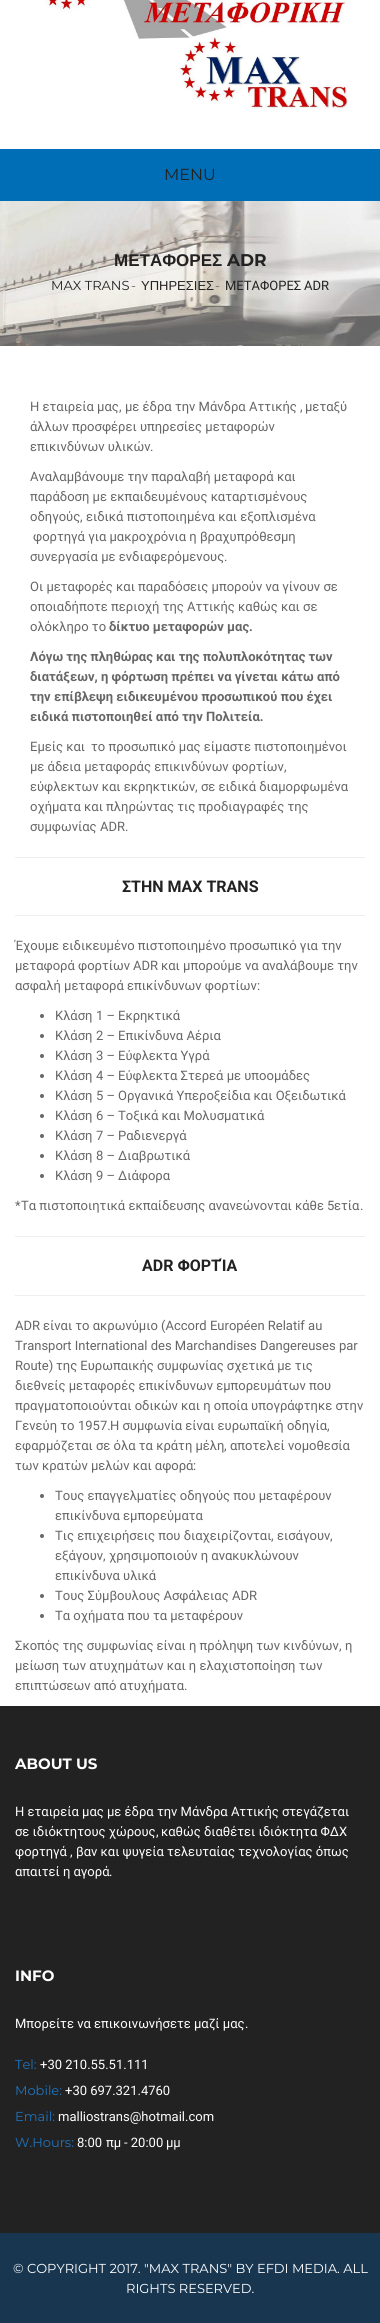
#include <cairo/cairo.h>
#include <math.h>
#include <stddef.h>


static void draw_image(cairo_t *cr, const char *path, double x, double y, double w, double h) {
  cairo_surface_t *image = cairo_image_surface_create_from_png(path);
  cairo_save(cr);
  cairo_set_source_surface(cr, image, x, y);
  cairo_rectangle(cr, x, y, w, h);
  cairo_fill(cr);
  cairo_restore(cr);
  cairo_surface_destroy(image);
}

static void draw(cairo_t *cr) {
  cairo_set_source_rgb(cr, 1, 1, 1);
  cairo_paint(cr);
  draw_image(cr, "images/1.png", 44, 0, 304, 109);
  cairo_set_source_rgb(cr, 0, 109 / 255.0, 183 / 255.0);
  cairo_rectangle(cr, 0, 149, 380, 52);
  cairo_fill(cr);
  draw_image(cr, "images/2.png", 0, 201, 380, 145);
  cairo_set_source_rgb(cr, 238 / 255.0, 238 / 255.0, 238 / 255.0);
  cairo_rectangle(cr, 15, 857, 350, 1);
  cairo_fill(cr);
  cairo_rectangle(cr, 15, 915, 350, 1);
  cairo_fill(cr);
  cairo_set_source_rgb(cr, 102 / 255.0, 102 / 255.0, 102 / 255.0);
  cairo_arc(cr, 42, 1016, 2, 0, 2 * M_PI);
  cairo_fill(cr);
  cairo_arc(cr, 42, 1036, 2, 0, 2 * M_PI);
  cairo_fill(cr);
  cairo_arc(cr, 42, 1056, 2, 0, 2 * M_PI);
  cairo_fill(cr);
  cairo_arc(cr, 42, 1076, 2, 0, 2 * M_PI);
  cairo_fill(cr);
  cairo_arc(cr, 42, 1096, 2, 0, 2 * M_PI);
  cairo_fill(cr);
  cairo_arc(cr, 42, 1116, 2, 0, 2 * M_PI);
  cairo_fill(cr);
  cairo_arc(cr, 42, 1136, 2, 0, 2 * M_PI);
  cairo_fill(cr);
  cairo_arc(cr, 42, 1156, 2, 0, 2 * M_PI);
  cairo_fill(cr);
  cairo_arc(cr, 42, 1176, 2, 0, 2 * M_PI);
  cairo_fill(cr);
  cairo_set_source_rgb(cr, 238 / 255.0, 238 / 255.0, 238 / 255.0);
  cairo_rectangle(cr, 15, 1236, 350, 1);
  cairo_fill(cr);
  cairo_rectangle(cr, 15, 1295, 350, 1);
  cairo_fill(cr);
  cairo_set_source_rgb(cr, 102 / 255.0, 102 / 255.0, 102 / 255.0);
  cairo_arc(cr, 42, 1496, 2, 0, 2 * M_PI);
  cairo_fill(cr);
  cairo_arc(cr, 42, 1536, 2, 0, 2 * M_PI);
  cairo_fill(cr);
  cairo_arc(cr, 42, 1596, 2, 0, 2 * M_PI);
  cairo_fill(cr);
  cairo_arc(cr, 42, 1616, 2, 0, 2 * M_PI);
  cairo_fill(cr);
  cairo_set_source_rgb(cr, 34 / 255.0, 34 / 255.0, 34 / 255.0);
  cairo_rectangle(cr, 0, 1706, 380, 527);
  cairo_fill(cr);
  cairo_set_source_rgb(cr, 24 / 255.0, 54 / 255.0, 80 / 255.0);
  cairo_rectangle(cr, 0, 2233, 380, 90);
  cairo_fill(cr);
  cairo_select_font_face(cr, "Montserrat", CAIRO_FONT_SLANT_NORMAL, CAIRO_FONT_WEIGHT_NORMAL);
  cairo_set_font_size(cr, 16);
  cairo_set_source_rgb(cr, 34 / 255.0, 34 / 255.0, 34 / 255.0);
  cairo_move_to(cr, 164, 180);
  cairo_show_text(cr, "MENU");
  cairo_select_font_face(cr, "Liberation Sans", CAIRO_FONT_SLANT_NORMAL, CAIRO_FONT_WEIGHT_BOLD);
  cairo_set_font_size(cr, 17);
  cairo_move_to(cr, 114, 266);
  cairo_show_text(cr, "ΜΕΤΑΦΟΡΕΣ");
  cairo_select_font_face(cr, "Montserrat", CAIRO_FONT_SLANT_NORMAL, CAIRO_FONT_WEIGHT_BOLD);
  cairo_move_to(cr, 227, 266);
  cairo_show_text(cr, "ADR");
  cairo_select_font_face(cr, "Montserrat", CAIRO_FONT_SLANT_NORMAL, CAIRO_FONT_WEIGHT_NORMAL);
  cairo_set_font_size(cr, 13);
  cairo_move_to(cr, 51, 290);
  cairo_show_text(cr, "MAX TRANS");
  cairo_set_source_rgb(cr, 102 / 255.0, 102 / 255.0, 102 / 255.0);
  cairo_move_to(cr, 131, 290);
  cairo_show_text(cr, "-");
  cairo_select_font_face(cr, "Liberation Sans", CAIRO_FONT_SLANT_NORMAL, CAIRO_FONT_WEIGHT_NORMAL);
  cairo_set_source_rgb(cr, 34 / 255.0, 34 / 255.0, 34 / 255.0);
  cairo_move_to(cr, 141, 290);
  cairo_show_text(cr, "ΥΠΗΡΕΣΙΕΣ");
  cairo_select_font_face(cr, "Montserrat", CAIRO_FONT_SLANT_NORMAL, CAIRO_FONT_WEIGHT_NORMAL);
  cairo_set_source_rgb(cr, 102 / 255.0, 102 / 255.0, 102 / 255.0);
  cairo_move_to(cr, 215, 290);
  cairo_show_text(cr, "-");
  cairo_select_font_face(cr, "Roboto", CAIRO_FONT_SLANT_NORMAL, CAIRO_FONT_WEIGHT_NORMAL);
  cairo_set_source_rgb(cr, 34 / 255.0, 34 / 255.0, 34 / 255.0);
  cairo_move_to(cr, 225, 290);
  cairo_show_text(cr, "ΜΕΤΑΦΟΡΕΣ");
  cairo_select_font_face(cr, "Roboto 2", CAIRO_FONT_SLANT_NORMAL, CAIRO_FONT_WEIGHT_NORMAL);
  cairo_move_to(cr, 304, 290);
  cairo_show_text(cr, "ADR");
  cairo_select_font_face(cr, "Roboto", CAIRO_FONT_SLANT_NORMAL, CAIRO_FONT_WEIGHT_NORMAL);
  cairo_set_source_rgb(cr, 102 / 255.0, 102 / 255.0, 102 / 255.0);
  cairo_move_to(cr, 30, 411);
  cairo_show_text(cr, "Η εταιρεία μας");
  cairo_select_font_face(cr, "Roboto 2", CAIRO_FONT_SLANT_NORMAL, CAIRO_FONT_WEIGHT_NORMAL);
  cairo_move_to(cr, 119, 411);
  cairo_show_text(cr, ",");
  cairo_select_font_face(cr, "Roboto", CAIRO_FONT_SLANT_NORMAL, CAIRO_FONT_WEIGHT_NORMAL);
  cairo_move_to(cr, 125, 411);
  cairo_show_text(cr, "με έδρα την Μάνδρα Αττικής");
  cairo_select_font_face(cr, "Roboto 2", CAIRO_FONT_SLANT_NORMAL, CAIRO_FONT_WEIGHT_NORMAL);
  cairo_move_to(cr, 300, 411);
  cairo_show_text(cr, ",");
  cairo_select_font_face(cr, "Roboto", CAIRO_FONT_SLANT_NORMAL, CAIRO_FONT_WEIGHT_NORMAL);
  cairo_move_to(cr, 305, 411);
  cairo_show_text(cr, "μεταξύ");
  cairo_move_to(cr, 30, 431);
  cairo_show_text(cr, "άλλων προσφέρει υπηρεσίες μεταφορών");
  cairo_move_to(cr, 30, 451);
  cairo_show_text(cr, "επικινδύνων υλικών");
  cairo_select_font_face(cr, "Roboto 2", CAIRO_FONT_SLANT_NORMAL, CAIRO_FONT_WEIGHT_NORMAL);
  cairo_move_to(cr, 150, 451);
  cairo_show_text(cr, ".");
  cairo_select_font_face(cr, "Roboto", CAIRO_FONT_SLANT_NORMAL, CAIRO_FONT_WEIGHT_NORMAL);
  cairo_move_to(cr, 30, 481);
  cairo_show_text(cr, "Αναλαμβάνουμε την παραλαβή μεταφορά και");
  cairo_move_to(cr, 30, 501);
  cairo_show_text(cr, "παράδοση με εκπαιδευμένους καταρτισμένους");
  cairo_move_to(cr, 30, 521);
  cairo_show_text(cr, "οδηγούς");
  cairo_select_font_face(cr, "Roboto 2", CAIRO_FONT_SLANT_NORMAL, CAIRO_FONT_WEIGHT_NORMAL);
  cairo_move_to(cr, 80, 521);
  cairo_show_text(cr, ",");
  cairo_select_font_face(cr, "Roboto", CAIRO_FONT_SLANT_NORMAL, CAIRO_FONT_WEIGHT_NORMAL);
  cairo_move_to(cr, 86, 521);
  cairo_show_text(cr, "ειδικά πιστοποιημένα και εξοπλισμένα");
  cairo_move_to(cr, 33, 541);
  cairo_show_text(cr, "φορτηγά για μακροχρόνια η βραχυπρόθεσμη");
  cairo_move_to(cr, 30, 561);
  cairo_show_text(cr, "συνεργασία με ενδιαφερόμενους");
  cairo_select_font_face(cr, "Roboto 2", CAIRO_FONT_SLANT_NORMAL, CAIRO_FONT_WEIGHT_NORMAL);
  cairo_move_to(cr, 224, 561);
  cairo_show_text(cr, ".");
  cairo_select_font_face(cr, "Roboto", CAIRO_FONT_SLANT_NORMAL, CAIRO_FONT_WEIGHT_NORMAL);
  cairo_move_to(cr, 30, 591);
  cairo_show_text(cr, "Οι μεταφορές και παραδόσεις μπορούν να γίνουν σε");
  cairo_move_to(cr, 30, 611);
  cairo_show_text(cr, "οποιαδήποτε περιοχή της Αττικής καθώς και σε");
  cairo_move_to(cr, 30, 631);
  cairo_show_text(cr, "ολόκληρο το");
  cairo_select_font_face(cr, "Roboto", CAIRO_FONT_SLANT_NORMAL, CAIRO_FONT_WEIGHT_BOLD);
  cairo_move_to(cr, 109, 631);
  cairo_show_text(cr, "δίκτυο μεταφορών μας.");
  cairo_move_to(cr, 30, 661);
  cairo_show_text(cr, "Λόγω της πληθώρας και της πολυπλοκότητας των");
  cairo_move_to(cr, 30, 681);
  cairo_show_text(cr, "διατάξεων, η φόρτωση πρέπει να γίνεται κάτω από");
  cairo_move_to(cr, 30, 701);
  cairo_show_text(cr, "την επίβλεψη ειδικευμένου προσωπικού που έχει");
  cairo_move_to(cr, 30, 721);
  cairo_show_text(cr, "ειδικά πιστοποιηθεί από την Πολιτεία.");
  cairo_select_font_face(cr, "Roboto", CAIRO_FONT_SLANT_NORMAL, CAIRO_FONT_WEIGHT_NORMAL);
  cairo_move_to(cr, 30, 751);
  cairo_show_text(cr, "Εμείς και");
  cairo_move_to(cr, 91, 751);
  cairo_show_text(cr, "το προσωπικό μας είμαστε πιστοποιημένοι");
  cairo_move_to(cr, 30, 771);
  cairo_show_text(cr, "με άδεια μεταφοράς επικινδύνων φορτίων");
  cairo_select_font_face(cr, "Roboto 2", CAIRO_FONT_SLANT_NORMAL, CAIRO_FONT_WEIGHT_NORMAL);
  cairo_move_to(cr, 284, 771);
  cairo_show_text(cr, ",");
  cairo_select_font_face(cr, "Roboto", CAIRO_FONT_SLANT_NORMAL, CAIRO_FONT_WEIGHT_NORMAL);
  cairo_move_to(cr, 30, 791);
  cairo_show_text(cr, "εύφλεκτων και εκρηκτικών");
  cairo_select_font_face(cr, "Roboto 2", CAIRO_FONT_SLANT_NORMAL, CAIRO_FONT_WEIGHT_NORMAL);
  cairo_move_to(cr, 195, 791);
  cairo_show_text(cr, ",");
  cairo_select_font_face(cr, "Roboto", CAIRO_FONT_SLANT_NORMAL, CAIRO_FONT_WEIGHT_NORMAL);
  cairo_move_to(cr, 201, 791);
  cairo_show_text(cr, "σε ειδικά διαμορφωμένα");
  cairo_move_to(cr, 30, 811);
  cairo_show_text(cr, "οχήματα και πληρώντας τις προδιαγραφές της");
  cairo_move_to(cr, 30, 831);
  cairo_show_text(cr, "συμφωνίας");
  cairo_select_font_face(cr, "Roboto 2", CAIRO_FONT_SLANT_NORMAL, CAIRO_FONT_WEIGHT_NORMAL);
  cairo_move_to(cr, 100, 831);
  cairo_show_text(cr, "ADR.");
  cairo_select_font_face(cr, "Roboto", CAIRO_FONT_SLANT_NORMAL, CAIRO_FONT_WEIGHT_BOLD);
  cairo_set_font_size(cr, 16);
  cairo_set_source_rgb(cr, 34 / 255.0, 34 / 255.0, 34 / 255.0);
  cairo_move_to(cr, 122, 892);
  cairo_show_text(cr, "ΣΤΗΝ MAX TRANS");
  cairo_select_font_face(cr, "Roboto", CAIRO_FONT_SLANT_NORMAL, CAIRO_FONT_WEIGHT_NORMAL);
  cairo_set_font_size(cr, 13);
  cairo_set_source_rgb(cr, 102 / 255.0, 102 / 255.0, 102 / 255.0);
  cairo_move_to(cr, 15, 950);
  cairo_show_text(cr, "Έχουμε ειδικευμένο πιστοποιημένο προσωπικό για την");
  cairo_move_to(cr, 15, 970);
  cairo_show_text(cr, "μεταφορά φορτίων");
  cairo_select_font_face(cr, "Roboto 2", CAIRO_FONT_SLANT_NORMAL, CAIRO_FONT_WEIGHT_NORMAL);
  cairo_move_to(cr, 133, 970);
  cairo_show_text(cr, "ADR");
  cairo_select_font_face(cr, "Roboto", CAIRO_FONT_SLANT_NORMAL, CAIRO_FONT_WEIGHT_NORMAL);
  cairo_move_to(cr, 161, 970);
  cairo_show_text(cr, "και μπορούμε να αναλάβουμε την");
  cairo_move_to(cr, 15, 990);
  cairo_show_text(cr, "ασφαλή μεταφορά επικίνδυνων φορτίων");
  cairo_select_font_face(cr, "Roboto 2", CAIRO_FONT_SLANT_NORMAL, CAIRO_FONT_WEIGHT_NORMAL);
  cairo_move_to(cr, 257, 990);
  cairo_show_text(cr, ":");
  cairo_select_font_face(cr, "Roboto", CAIRO_FONT_SLANT_NORMAL, CAIRO_FONT_WEIGHT_NORMAL);
  cairo_move_to(cr, 55, 1020);
  cairo_show_text(cr, "Κλάση");
  cairo_select_font_face(cr, "Roboto 2", CAIRO_FONT_SLANT_NORMAL, CAIRO_FONT_WEIGHT_NORMAL);
  cairo_move_to(cr, 96, 1020);
  cairo_show_text(cr, "1 –");
  cairo_select_font_face(cr, "Roboto", CAIRO_FONT_SLANT_NORMAL, CAIRO_FONT_WEIGHT_NORMAL);
  cairo_move_to(cr, 118, 1020);
  cairo_show_text(cr, "Εκρηκτικά");
  cairo_move_to(cr, 55, 1040);
  cairo_show_text(cr, "Κλάση");
  cairo_select_font_face(cr, "Roboto 2", CAIRO_FONT_SLANT_NORMAL, CAIRO_FONT_WEIGHT_NORMAL);
  cairo_move_to(cr, 96, 1040);
  cairo_show_text(cr, "2 –");
  cairo_select_font_face(cr, "Roboto", CAIRO_FONT_SLANT_NORMAL, CAIRO_FONT_WEIGHT_NORMAL);
  cairo_move_to(cr, 118, 1040);
  cairo_show_text(cr, "Επικίνδυνα Αέρια");
  cairo_move_to(cr, 55, 1060);
  cairo_show_text(cr, "Κλάση");
  cairo_select_font_face(cr, "Roboto 2", CAIRO_FONT_SLANT_NORMAL, CAIRO_FONT_WEIGHT_NORMAL);
  cairo_move_to(cr, 96, 1060);
  cairo_show_text(cr, "3 –");
  cairo_select_font_face(cr, "Roboto", CAIRO_FONT_SLANT_NORMAL, CAIRO_FONT_WEIGHT_NORMAL);
  cairo_move_to(cr, 118, 1060);
  cairo_show_text(cr, "Εύφλεκτα Υγρά");
  cairo_move_to(cr, 55, 1080);
  cairo_show_text(cr, "Κλάση");
  cairo_select_font_face(cr, "Roboto 2", CAIRO_FONT_SLANT_NORMAL, CAIRO_FONT_WEIGHT_NORMAL);
  cairo_move_to(cr, 96, 1080);
  cairo_show_text(cr, "4 –");
  cairo_select_font_face(cr, "Roboto", CAIRO_FONT_SLANT_NORMAL, CAIRO_FONT_WEIGHT_NORMAL);
  cairo_move_to(cr, 118, 1080);
  cairo_show_text(cr, "Εύφλεκτα Στερεά με υποομάδες");
  cairo_move_to(cr, 55, 1100);
  cairo_show_text(cr, "Κλάση");
  cairo_select_font_face(cr, "Roboto 2", CAIRO_FONT_SLANT_NORMAL, CAIRO_FONT_WEIGHT_NORMAL);
  cairo_move_to(cr, 96, 1100);
  cairo_show_text(cr, "5 –");
  cairo_select_font_face(cr, "Roboto", CAIRO_FONT_SLANT_NORMAL, CAIRO_FONT_WEIGHT_NORMAL);
  cairo_move_to(cr, 118, 1100);
  cairo_show_text(cr, "Οργανικά Υπεροξείδια και Οξειδωτικά");
  cairo_move_to(cr, 55, 1120);
  cairo_show_text(cr, "Κλάση");
  cairo_select_font_face(cr, "Roboto 2", CAIRO_FONT_SLANT_NORMAL, CAIRO_FONT_WEIGHT_NORMAL);
  cairo_move_to(cr, 96, 1120);
  cairo_show_text(cr, "6 –");
  cairo_select_font_face(cr, "Roboto", CAIRO_FONT_SLANT_NORMAL, CAIRO_FONT_WEIGHT_NORMAL);
  cairo_move_to(cr, 118, 1120);
  cairo_show_text(cr, "Τοξικά και Μολυσματικά");
  cairo_move_to(cr, 55, 1140);
  cairo_show_text(cr, "Κλάση");
  cairo_select_font_face(cr, "Roboto 2", CAIRO_FONT_SLANT_NORMAL, CAIRO_FONT_WEIGHT_NORMAL);
  cairo_move_to(cr, 96, 1140);
  cairo_show_text(cr, "7 –");
  cairo_select_font_face(cr, "Roboto", CAIRO_FONT_SLANT_NORMAL, CAIRO_FONT_WEIGHT_NORMAL);
  cairo_move_to(cr, 118, 1140);
  cairo_show_text(cr, "Ραδιενεργά");
  cairo_move_to(cr, 55, 1160);
  cairo_show_text(cr, "Κλάση");
  cairo_select_font_face(cr, "Roboto 2", CAIRO_FONT_SLANT_NORMAL, CAIRO_FONT_WEIGHT_NORMAL);
  cairo_move_to(cr, 96, 1160);
  cairo_show_text(cr, "8 –");
  cairo_select_font_face(cr, "Roboto", CAIRO_FONT_SLANT_NORMAL, CAIRO_FONT_WEIGHT_NORMAL);
  cairo_move_to(cr, 118, 1160);
  cairo_show_text(cr, "Διαβρωτικά");
  cairo_move_to(cr, 55, 1180);
  cairo_show_text(cr, "Κλάση");
  cairo_select_font_face(cr, "Roboto 2", CAIRO_FONT_SLANT_NORMAL, CAIRO_FONT_WEIGHT_NORMAL);
  cairo_move_to(cr, 96, 1180);
  cairo_show_text(cr, "9 –");
  cairo_select_font_face(cr, "Roboto", CAIRO_FONT_SLANT_NORMAL, CAIRO_FONT_WEIGHT_NORMAL);
  cairo_move_to(cr, 118, 1180);
  cairo_show_text(cr, "Διάφορα");
  cairo_select_font_face(cr, "Roboto 2", CAIRO_FONT_SLANT_NORMAL, CAIRO_FONT_WEIGHT_NORMAL);
  cairo_move_to(cr, 15, 1210);
  cairo_show_text(cr, "*");
  cairo_select_font_face(cr, "Roboto", CAIRO_FONT_SLANT_NORMAL, CAIRO_FONT_WEIGHT_NORMAL);
  cairo_move_to(cr, 21, 1210);
  cairo_show_text(cr, "Τα πιστοποιητικά εκπαίδευσης ανανεώνονται κάθε");
  cairo_select_font_face(cr, "Roboto 2", CAIRO_FONT_SLANT_NORMAL, CAIRO_FONT_WEIGHT_NORMAL);
  cairo_move_to(cr, 327, 1210);
  cairo_show_text(cr, "5");
  cairo_select_font_face(cr, "Roboto", CAIRO_FONT_SLANT_NORMAL, CAIRO_FONT_WEIGHT_NORMAL);
  cairo_move_to(cr, 334, 1210);
  cairo_show_text(cr, "ετία");
  cairo_select_font_face(cr, "Roboto 2", CAIRO_FONT_SLANT_NORMAL, CAIRO_FONT_WEIGHT_NORMAL);
  cairo_move_to(cr, 360, 1210);
  cairo_show_text(cr, ".");
  cairo_select_font_face(cr, "Roboto", CAIRO_FONT_SLANT_NORMAL, CAIRO_FONT_WEIGHT_BOLD);
  cairo_set_font_size(cr, 16);
  cairo_set_source_rgb(cr, 34 / 255.0, 34 / 255.0, 34 / 255.0);
  cairo_move_to(cr, 142, 1271);
  cairo_show_text(cr, "ADR ΦΟΡΤΊΑ");
  cairo_select_font_face(cr, "Roboto 2", CAIRO_FONT_SLANT_NORMAL, CAIRO_FONT_WEIGHT_NORMAL);
  cairo_set_font_size(cr, 13);
  cairo_set_source_rgb(cr, 102 / 255.0, 102 / 255.0, 102 / 255.0);
  cairo_move_to(cr, 15, 1330);
  cairo_show_text(cr, "ADR");
  cairo_select_font_face(cr, "Roboto", CAIRO_FONT_SLANT_NORMAL, CAIRO_FONT_WEIGHT_NORMAL);
  cairo_move_to(cr, 43, 1330);
  cairo_show_text(cr, "είναι το ακρωνύμιο");
  cairo_select_font_face(cr, "Roboto 2", CAIRO_FONT_SLANT_NORMAL, CAIRO_FONT_WEIGHT_NORMAL);
  cairo_move_to(cr, 161, 1330);
  cairo_show_text(cr, "(Accord Européen Relatif au");
  cairo_move_to(cr, 15, 1350);
  cairo_show_text(cr, "Transport International des Marchandises Dangereuses par");
  cairo_move_to(cr, 15, 1370);
  cairo_show_text(cr, "Route)");
  cairo_select_font_face(cr, "Roboto", CAIRO_FONT_SLANT_NORMAL, CAIRO_FONT_WEIGHT_NORMAL);
  cairo_move_to(cr, 56, 1370);
  cairo_show_text(cr, "της Ευρωπαικής συμφωνίας σχετικά με τις");
  cairo_move_to(cr, 15, 1390);
  cairo_show_text(cr, "διεθνείς μεταφορές επικίνδυνων εμπορευμάτων που");
  cairo_move_to(cr, 15, 1410);
  cairo_show_text(cr, "πραγματοποιούνται οδικών και η οποία υπογράφτηκε στην");
  cairo_move_to(cr, 15, 1430);
  cairo_show_text(cr, "Γενεύη το");
  cairo_select_font_face(cr, "Roboto 2", CAIRO_FONT_SLANT_NORMAL, CAIRO_FONT_WEIGHT_NORMAL);
  cairo_move_to(cr, 78, 1430);
  cairo_show_text(cr, "1957.");
  cairo_select_font_face(cr, "Roboto", CAIRO_FONT_SLANT_NORMAL, CAIRO_FONT_WEIGHT_NORMAL);
  cairo_move_to(cr, 110, 1430);
  cairo_show_text(cr, "Η συμφωνία είναι ευρωπαϊκή οδηγία");
  cairo_select_font_face(cr, "Roboto 2", CAIRO_FONT_SLANT_NORMAL, CAIRO_FONT_WEIGHT_NORMAL);
  cairo_move_to(cr, 327, 1430);
  cairo_show_text(cr, ",");
  cairo_select_font_face(cr, "Roboto", CAIRO_FONT_SLANT_NORMAL, CAIRO_FONT_WEIGHT_NORMAL);
  cairo_move_to(cr, 15, 1450);
  cairo_show_text(cr, "εφαρμόζεται σε όλα τα κράτη μέλη");
  cairo_select_font_face(cr, "Roboto 2", CAIRO_FONT_SLANT_NORMAL, CAIRO_FONT_WEIGHT_NORMAL);
  cairo_move_to(cr, 224, 1450);
  cairo_show_text(cr, ",");
  cairo_select_font_face(cr, "Roboto", CAIRO_FONT_SLANT_NORMAL, CAIRO_FONT_WEIGHT_NORMAL);
  cairo_move_to(cr, 230, 1450);
  cairo_show_text(cr, "αποτελεί νομοθεσία");
  cairo_move_to(cr, 15, 1470);
  cairo_show_text(cr, "των κρατών μελών και αφορά");
  cairo_select_font_face(cr, "Roboto 2", CAIRO_FONT_SLANT_NORMAL, CAIRO_FONT_WEIGHT_NORMAL);
  cairo_move_to(cr, 193, 1470);
  cairo_show_text(cr, ":");
  cairo_select_font_face(cr, "Roboto", CAIRO_FONT_SLANT_NORMAL, CAIRO_FONT_WEIGHT_NORMAL);
  cairo_move_to(cr, 55, 1500);
  cairo_show_text(cr, "Τους επαγγελματίες οδηγούς που μεταφέρουν");
  cairo_move_to(cr, 55, 1520);
  cairo_show_text(cr, "επικίνδυνα εμπορεύματα");
  cairo_move_to(cr, 55, 1540);
  cairo_show_text(cr, "Τις επιχειρήσεις που διαχειρίζονται");
  cairo_move_to(cr, 277, 1540);
  cairo_show_text(cr, "εισάγουν");
  cairo_select_font_face(cr, "Roboto 2", CAIRO_FONT_SLANT_NORMAL, CAIRO_FONT_WEIGHT_NORMAL);
  cairo_move_to(cr, 271, 1540);
  cairo_show_text(cr, ",");
  cairo_move_to(cr, 330, 1540);
  cairo_show_text(cr, ",");
  cairo_select_font_face(cr, "Roboto", CAIRO_FONT_SLANT_NORMAL, CAIRO_FONT_WEIGHT_NORMAL);
  cairo_move_to(cr, 55, 1560);
  cairo_show_text(cr, "εξάγουν");
  cairo_select_font_face(cr, "Roboto 2", CAIRO_FONT_SLANT_NORMAL, CAIRO_FONT_WEIGHT_NORMAL);
  cairo_move_to(cr, 103, 1560);
  cairo_show_text(cr, ",");
  cairo_select_font_face(cr, "Roboto", CAIRO_FONT_SLANT_NORMAL, CAIRO_FONT_WEIGHT_NORMAL);
  cairo_move_to(cr, 109, 1560);
  cairo_show_text(cr, "χρησιμοποιούν η ανακυκλώνουν");
  cairo_move_to(cr, 55, 1580);
  cairo_show_text(cr, "επικίνδυνα υλικά");
  cairo_move_to(cr, 55, 1600);
  cairo_show_text(cr, "Τους Σύμβουλους Ασφάλειας");
  cairo_select_font_face(cr, "Roboto 2", CAIRO_FONT_SLANT_NORMAL, CAIRO_FONT_WEIGHT_NORMAL);
  cairo_move_to(cr, 232, 1600);
  cairo_show_text(cr, "ADR");
  cairo_select_font_face(cr, "Roboto", CAIRO_FONT_SLANT_NORMAL, CAIRO_FONT_WEIGHT_NORMAL);
  cairo_move_to(cr, 55, 1620);
  cairo_show_text(cr, "Τα οχήματα που τα μεταφέρουν");
  cairo_move_to(cr, 15, 1650);
  cairo_show_text(cr, "Σκοπός της συμφωνίας είναι η πρόληψη των κινδύνων");
  cairo_select_font_face(cr, "Roboto 2", CAIRO_FONT_SLANT_NORMAL, CAIRO_FONT_WEIGHT_NORMAL);
  cairo_move_to(cr, 339, 1650);
  cairo_show_text(cr, ",");
  cairo_select_font_face(cr, "Roboto", CAIRO_FONT_SLANT_NORMAL, CAIRO_FONT_WEIGHT_NORMAL);
  cairo_move_to(cr, 345, 1650);
  cairo_show_text(cr, "η");
  cairo_move_to(cr, 15, 1670);
  cairo_show_text(cr, "μείωση των ατυχημάτων και η ελαχιστοποίηση των");
  cairo_move_to(cr, 15, 1690);
  cairo_show_text(cr, "επιπτώσεων από ατυχήματα");
  cairo_select_font_face(cr, "Roboto 2", CAIRO_FONT_SLANT_NORMAL, CAIRO_FONT_WEIGHT_NORMAL);
  cairo_move_to(cr, 184, 1690);
  cairo_show_text(cr, ".");
  cairo_select_font_face(cr, "Montserrat", CAIRO_FONT_SLANT_NORMAL, CAIRO_FONT_WEIGHT_BOLD);
  cairo_set_font_size(cr, 15);
  cairo_set_source_rgb(cr, 1, 1, 1);
  cairo_move_to(cr, 15, 1769);
  cairo_show_text(cr, "ABOUT US");
  cairo_select_font_face(cr, "Roboto", CAIRO_FONT_SLANT_NORMAL, CAIRO_FONT_WEIGHT_NORMAL);
  cairo_set_font_size(cr, 13);
  cairo_move_to(cr, 15, 1816);
  cairo_show_text(cr, "Η εταιρεία μας με έδρα την Μάνδρα Αττικής στεγάζεται");
  cairo_move_to(cr, 15, 1836);
  cairo_show_text(cr, "σε ιδιόκτητους χώρους");
  cairo_select_font_face(cr, "Roboto 2", CAIRO_FONT_SLANT_NORMAL, CAIRO_FONT_WEIGHT_NORMAL);
  cairo_move_to(cr, 156, 1836);
  cairo_show_text(cr, ",");
  cairo_select_font_face(cr, "Roboto", CAIRO_FONT_SLANT_NORMAL, CAIRO_FONT_WEIGHT_NORMAL);
  cairo_move_to(cr, 161, 1836);
  cairo_show_text(cr, "καθώς διαθέτει ιδιόκτητα ΦΔΧ");
  cairo_move_to(cr, 15, 1856);
  cairo_show_text(cr, "φορτηγά");
  cairo_select_font_face(cr, "Roboto 2", CAIRO_FONT_SLANT_NORMAL, CAIRO_FONT_WEIGHT_NORMAL);
  cairo_move_to(cr, 70, 1856);
  cairo_show_text(cr, ",");
  cairo_select_font_face(cr, "Roboto", CAIRO_FONT_SLANT_NORMAL, CAIRO_FONT_WEIGHT_NORMAL);
  cairo_move_to(cr, 76, 1856);
  cairo_show_text(cr, "βαν και ψυγεία τελευταίας τεχνολογίας όπως");
  cairo_move_to(cr, 15, 1876);
  cairo_show_text(cr, "απαιτεί η αγορά");
  cairo_select_font_face(cr, "Roboto 2", CAIRO_FONT_SLANT_NORMAL, CAIRO_FONT_WEIGHT_NORMAL);
  cairo_move_to(cr, 109, 1876);
  cairo_show_text(cr, ".");
  cairo_select_font_face(cr, "Montserrat", CAIRO_FONT_SLANT_NORMAL, CAIRO_FONT_WEIGHT_BOLD);
  cairo_set_font_size(cr, 15);
  cairo_move_to(cr, 15, 1981);
  cairo_show_text(cr, "INFO");
  cairo_select_font_face(cr, "Roboto", CAIRO_FONT_SLANT_NORMAL, CAIRO_FONT_WEIGHT_NORMAL);
  cairo_set_font_size(cr, 13);
  cairo_move_to(cr, 15, 2028);
  cairo_show_text(cr, "Μπορείτε να επικοινωνήσετε μαζί μας");
  cairo_select_font_face(cr, "Roboto 2", CAIRO_FONT_SLANT_NORMAL, CAIRO_FONT_WEIGHT_NORMAL);
  cairo_move_to(cr, 245, 2028);
  cairo_show_text(cr, ".");
  cairo_select_font_face(cr, "Montserrat", CAIRO_FONT_SLANT_NORMAL, CAIRO_FONT_WEIGHT_NORMAL);
  cairo_set_source_rgb(cr, 30 / 255.0, 115 / 255.0, 190 / 255.0);
  cairo_move_to(cr, 15, 2069);
  cairo_show_text(cr, "Tel:");
  cairo_select_font_face(cr, "Roboto 2", CAIRO_FONT_SLANT_NORMAL, CAIRO_FONT_WEIGHT_NORMAL);
  cairo_set_source_rgb(cr, 1, 1, 1);
  cairo_move_to(cr, 40, 2069);
  cairo_show_text(cr, "+30 210.55.51.111");
  cairo_select_font_face(cr, "Montserrat", CAIRO_FONT_SLANT_NORMAL, CAIRO_FONT_WEIGHT_NORMAL);
  cairo_set_source_rgb(cr, 30 / 255.0, 115 / 255.0, 190 / 255.0);
  cairo_move_to(cr, 15, 2095);
  cairo_show_text(cr, "Mobile:");
  cairo_select_font_face(cr, "Roboto 2", CAIRO_FONT_SLANT_NORMAL, CAIRO_FONT_WEIGHT_NORMAL);
  cairo_set_source_rgb(cr, 1, 1, 1);
  cairo_move_to(cr, 65, 2095);
  cairo_show_text(cr, "+30 697.321.4760");
  cairo_select_font_face(cr, "Montserrat", CAIRO_FONT_SLANT_NORMAL, CAIRO_FONT_WEIGHT_NORMAL);
  cairo_set_source_rgb(cr, 30 / 255.0, 115 / 255.0, 190 / 255.0);
  cairo_move_to(cr, 15, 2121);
  cairo_show_text(cr, "Email:");
  cairo_select_font_face(cr, "Roboto 2", CAIRO_FONT_SLANT_NORMAL, CAIRO_FONT_WEIGHT_NORMAL);
  cairo_set_source_rgb(cr, 1, 1, 1);
  cairo_move_to(cr, 58, 2121);
  cairo_show_text(cr, "malliostrans@hotmail.com");
  cairo_select_font_face(cr, "Montserrat", CAIRO_FONT_SLANT_NORMAL, CAIRO_FONT_WEIGHT_NORMAL);
  cairo_set_source_rgb(cr, 30 / 255.0, 115 / 255.0, 190 / 255.0);
  cairo_move_to(cr, 15, 2147);
  cairo_show_text(cr, "W.Hours:");
  cairo_select_font_face(cr, "Roboto 2", CAIRO_FONT_SLANT_NORMAL, CAIRO_FONT_WEIGHT_NORMAL);
  cairo_set_source_rgb(cr, 1, 1, 1);
  cairo_move_to(cr, 77, 2147);
  cairo_show_text(cr, "8:00");
  cairo_select_font_face(cr, "Roboto", CAIRO_FONT_SLANT_NORMAL, CAIRO_FONT_WEIGHT_NORMAL);
  cairo_move_to(cr, 106, 2147);
  cairo_show_text(cr, "πμ");
  cairo_select_font_face(cr, "Roboto 2", CAIRO_FONT_SLANT_NORMAL, CAIRO_FONT_WEIGHT_NORMAL);
  cairo_move_to(cr, 124, 2147);
  cairo_show_text(cr, "- 20:00");
  cairo_select_font_face(cr, "Roboto", CAIRO_FONT_SLANT_NORMAL, CAIRO_FONT_WEIGHT_NORMAL);
  cairo_move_to(cr, 166, 2147);
  cairo_show_text(cr, "μμ");
  cairo_select_font_face(cr, "Montserrat", CAIRO_FONT_SLANT_NORMAL, CAIRO_FONT_WEIGHT_NORMAL);
  cairo_move_to(cr, 13, 2273);
  cairo_show_text(cr, "© COPYRIGHT 2017. \"MAX TRANS\" BY EFDI MEDIA. ALL");
  cairo_move_to(cr, 126, 2293);
  cairo_show_text(cr, "RIGHTS RESERVED.");
}

int main(void) {
  cairo_surface_t *surface = cairo_image_surface_create(CAIRO_FORMAT_RGB24, 380, 2323);
  cairo_t *cr = cairo_create(surface);
  cairo_font_options_t *options = cairo_font_options_create();
  cairo_font_options_set_hint_metrics(options, CAIRO_HINT_METRICS_OFF);
  cairo_font_options_set_hint_style(options, CAIRO_HINT_STYLE_NONE);
  cairo_set_font_options(cr, options);
  cairo_set_miter_limit(cr, 4);
  draw(cr);
  cairo_surface_write_to_png(surface, "out.png");
  cairo_font_options_destroy(options);
  cairo_destroy(cr);
  cairo_surface_destroy(surface);
  return 0;
}
